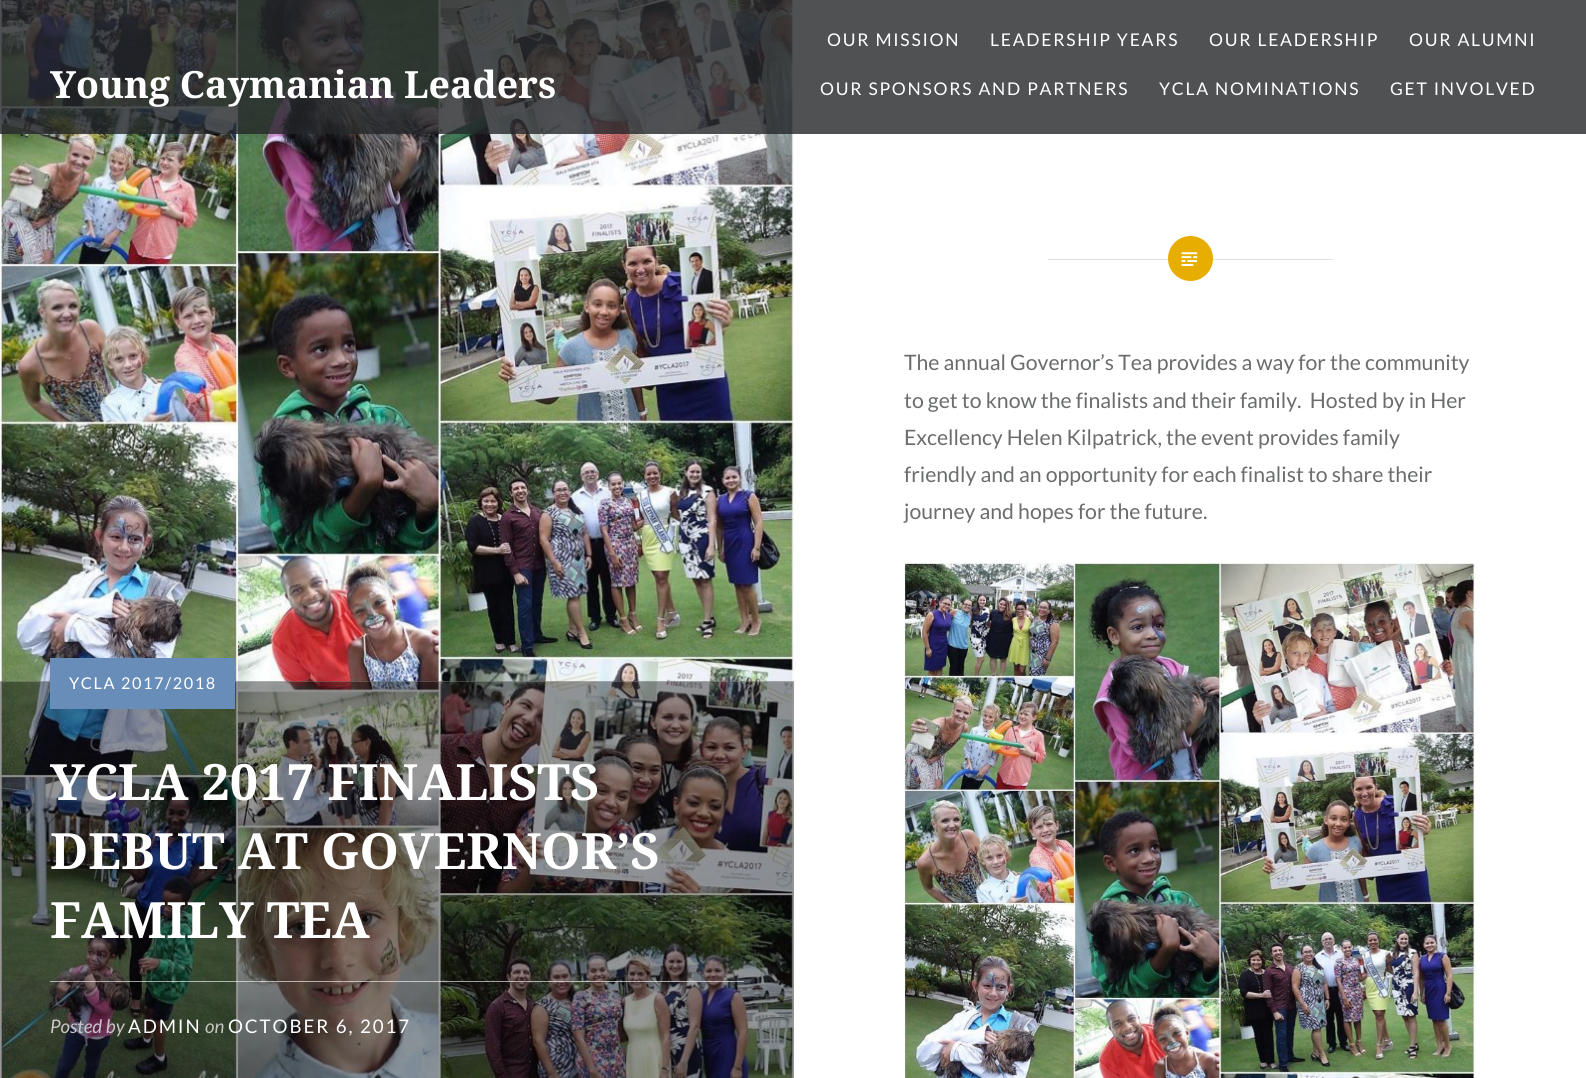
#include <cairo/cairo.h>
#include <math.h>
#include <stddef.h>


static void draw_spaced(cairo_t *cr, double x, double y, const char *s, double letter, double word) {
  cairo_move_to(cr, x, y);
  while (*s) {
    char ch[5] = {0};
    int n = 0;
    do ch[n++] = *s++; while ((*s & 0xC0) == 0x80);
    cairo_show_text(cr, ch);
    cairo_rel_move_to(cr, letter + word * (*ch == ' '), 0);
  }
}

static void draw_image(cairo_t *cr, const char *path, double x, double y, double w, double h) {
  cairo_surface_t *image = cairo_image_surface_create_from_png(path);
  cairo_save(cr);
  cairo_set_source_surface(cr, image, x, y);
  cairo_rectangle(cr, x, y, w, h);
  cairo_fill(cr);
  cairo_restore(cr);
  cairo_surface_destroy(image);
}

static void draw(cairo_t *cr) {
  cairo_set_source_rgb(cr, 1, 1, 1);
  cairo_paint(cr);
  draw_image(cr, "images/1.png", 0, 0, 794, 1078);
  cairo_set_source_rgba(cr, 36 / 255.0, 38 / 255.0, 41 / 255.0, 0.8);
  cairo_rectangle(cr, 0, 0, 1586, 134);
  cairo_fill(cr);
  cairo_set_source_rgb(cr, 224 / 255.0, 224 / 255.0, 224 / 255.0);
  cairo_rectangle(cr, 1048, 259, 285, 1);
  cairo_fill(cr);
  cairo_set_source_rgb(cr, 231 / 255.0, 174 / 255.0, 1 / 255.0);
  cairo_arc(cr, 1190.5, 258.5, 22.5, 0, 2 * M_PI);
  cairo_fill(cr);
  draw_image(cr, "images/2.png", 1181, 252, 17, 14);
  draw_image(cr, "images/3.png", 904, 562, 572, 516);
  cairo_set_source_rgba(cr, 0, 0, 0, 0.4);
  cairo_rectangle(cr, 0, 681, 794, 397);
  cairo_fill(cr);
  cairo_set_source_rgba(cr, 1, 1, 1, 0.2);
  cairo_rectangle(cr, 0, 681, 794, 1);
  cairo_fill(cr);
  cairo_set_source_rgb(cr, 103 / 255.0, 141 / 255.0, 184 / 255.0);
  cairo_rectangle(cr, 50, 658, 185, 51);
  cairo_fill(cr);
  cairo_set_source_rgba(cr, 1, 1, 1, 0.6);
  cairo_rectangle(cr, 50, 981, 694, 1);
  cairo_fill(cr);
  cairo_select_font_face(cr, "Noto Serif", CAIRO_FONT_SLANT_NORMAL, CAIRO_FONT_WEIGHT_BOLD);
  cairo_set_font_size(cr, 37.5);
  cairo_set_source_rgb(cr, 1, 1, 1);
  cairo_move_to(cr, 50, 98);
  cairo_show_text(cr, "Young Caymanian Leaders");
  cairo_select_font_face(cr, "Lato", CAIRO_FONT_SLANT_NORMAL, CAIRO_FONT_WEIGHT_NORMAL);
  cairo_set_font_size(cr, 17.5);
  draw_spaced(cr, 827, 46, "OUR MISSION", 1.75, 0);
  draw_spaced(cr, 990, 46, "LEADERSHIP YEARS", 1.75, 0);
  draw_spaced(cr, 1209, 46, "OUR LEADERSHIP", 1.75, 0);
  draw_spaced(cr, 1409, 46, "OUR ALUMNI", 1.75, 0);
  draw_spaced(cr, 820, 95, "OUR SPONSORS AND PARTNERS", 1.75, 0);
  draw_spaced(cr, 1159, 95, "YCLA NOMINATIONS", 1.75, 0);
  draw_spaced(cr, 1390, 95, "GET INVOLVED", 1.75, 0);
  cairo_set_font_size(cr, 21.25);
  cairo_set_source_rgb(cr, 106 / 255.0, 108 / 255.0, 110 / 255.0);
  cairo_move_to(cr, 904, 370);
  cairo_show_text(cr, "The annual Governor’s Tea provides a way for the community");
  cairo_move_to(cr, 904, 408);
  cairo_show_text(cr, "to get to know the finalists and their family.  Hosted by in Her");
  cairo_move_to(cr, 904, 445);
  cairo_show_text(cr, "Excellency Helen Kilpatrick, the event provides family");
  cairo_move_to(cr, 904, 482);
  cairo_show_text(cr, "friendly and an opportunity for each finalist to share their");
  cairo_move_to(cr, 904, 519);
  cairo_show_text(cr, "journey and hopes for the future.");
  cairo_set_font_size(cr, 16.25);
  cairo_set_source_rgb(cr, 1, 1, 1);
  draw_spaced(cr, 69, 689, "YCLA 2017/2018", 1.6, 0);
  cairo_select_font_face(cr, "Noto Serif", CAIRO_FONT_SLANT_NORMAL, CAIRO_FONT_WEIGHT_BOLD);
  cairo_set_font_size(cr, 50);
  cairo_move_to(cr, 50, 800);
  cairo_show_text(cr, "YCLA 2017 FINALISTS");
  cairo_move_to(cr, 50, 869);
  cairo_show_text(cr, "DEBUT AT GOVERNOR’S");
  cairo_move_to(cr, 50, 938);
  cairo_show_text(cr, "FAMILY TEA");
  cairo_select_font_face(cr, "Lato", CAIRO_FONT_SLANT_ITALIC, CAIRO_FONT_WEIGHT_NORMAL);
  cairo_set_font_size(cr, 18.75);
  cairo_set_source_rgb(cr, 201 / 255.0, 197 / 255.0, 200 / 255.0);
  cairo_move_to(cr, 50, 1033);
  cairo_show_text(cr, "Posted by");
  cairo_select_font_face(cr, "Lato", CAIRO_FONT_SLANT_NORMAL, CAIRO_FONT_WEIGHT_NORMAL);
  cairo_set_source_rgb(cr, 1, 1, 1);
  draw_spaced(cr, 128, 1033, "ADMIN", 1.9, 0);
  cairo_select_font_face(cr, "Lato", CAIRO_FONT_SLANT_ITALIC, CAIRO_FONT_WEIGHT_NORMAL);
  cairo_set_source_rgb(cr, 194 / 255.0, 198 / 255.0, 192 / 255.0);
  cairo_move_to(cr, 205, 1033);
  cairo_show_text(cr, "on");
  cairo_select_font_face(cr, "Lato", CAIRO_FONT_SLANT_NORMAL, CAIRO_FONT_WEIGHT_NORMAL);
  cairo_set_source_rgb(cr, 1, 1, 1);
  draw_spaced(cr, 228, 1033, "OCTOBER 6, 2017", 1.9, 0);
}

int main(void) {
  cairo_surface_t *surface = cairo_image_surface_create(CAIRO_FORMAT_RGB24, 1586, 1078);
  cairo_t *cr = cairo_create(surface);
  cairo_font_options_t *options = cairo_font_options_create();
  cairo_font_options_set_hint_metrics(options, CAIRO_HINT_METRICS_OFF);
  cairo_font_options_set_hint_style(options, CAIRO_HINT_STYLE_NONE);
  cairo_set_font_options(cr, options);
  cairo_set_miter_limit(cr, 4);
  draw(cr);
  cairo_surface_write_to_png(surface, "out.png");
  cairo_font_options_destroy(options);
  cairo_destroy(cr);
  cairo_surface_destroy(surface);
  return 0;
}
